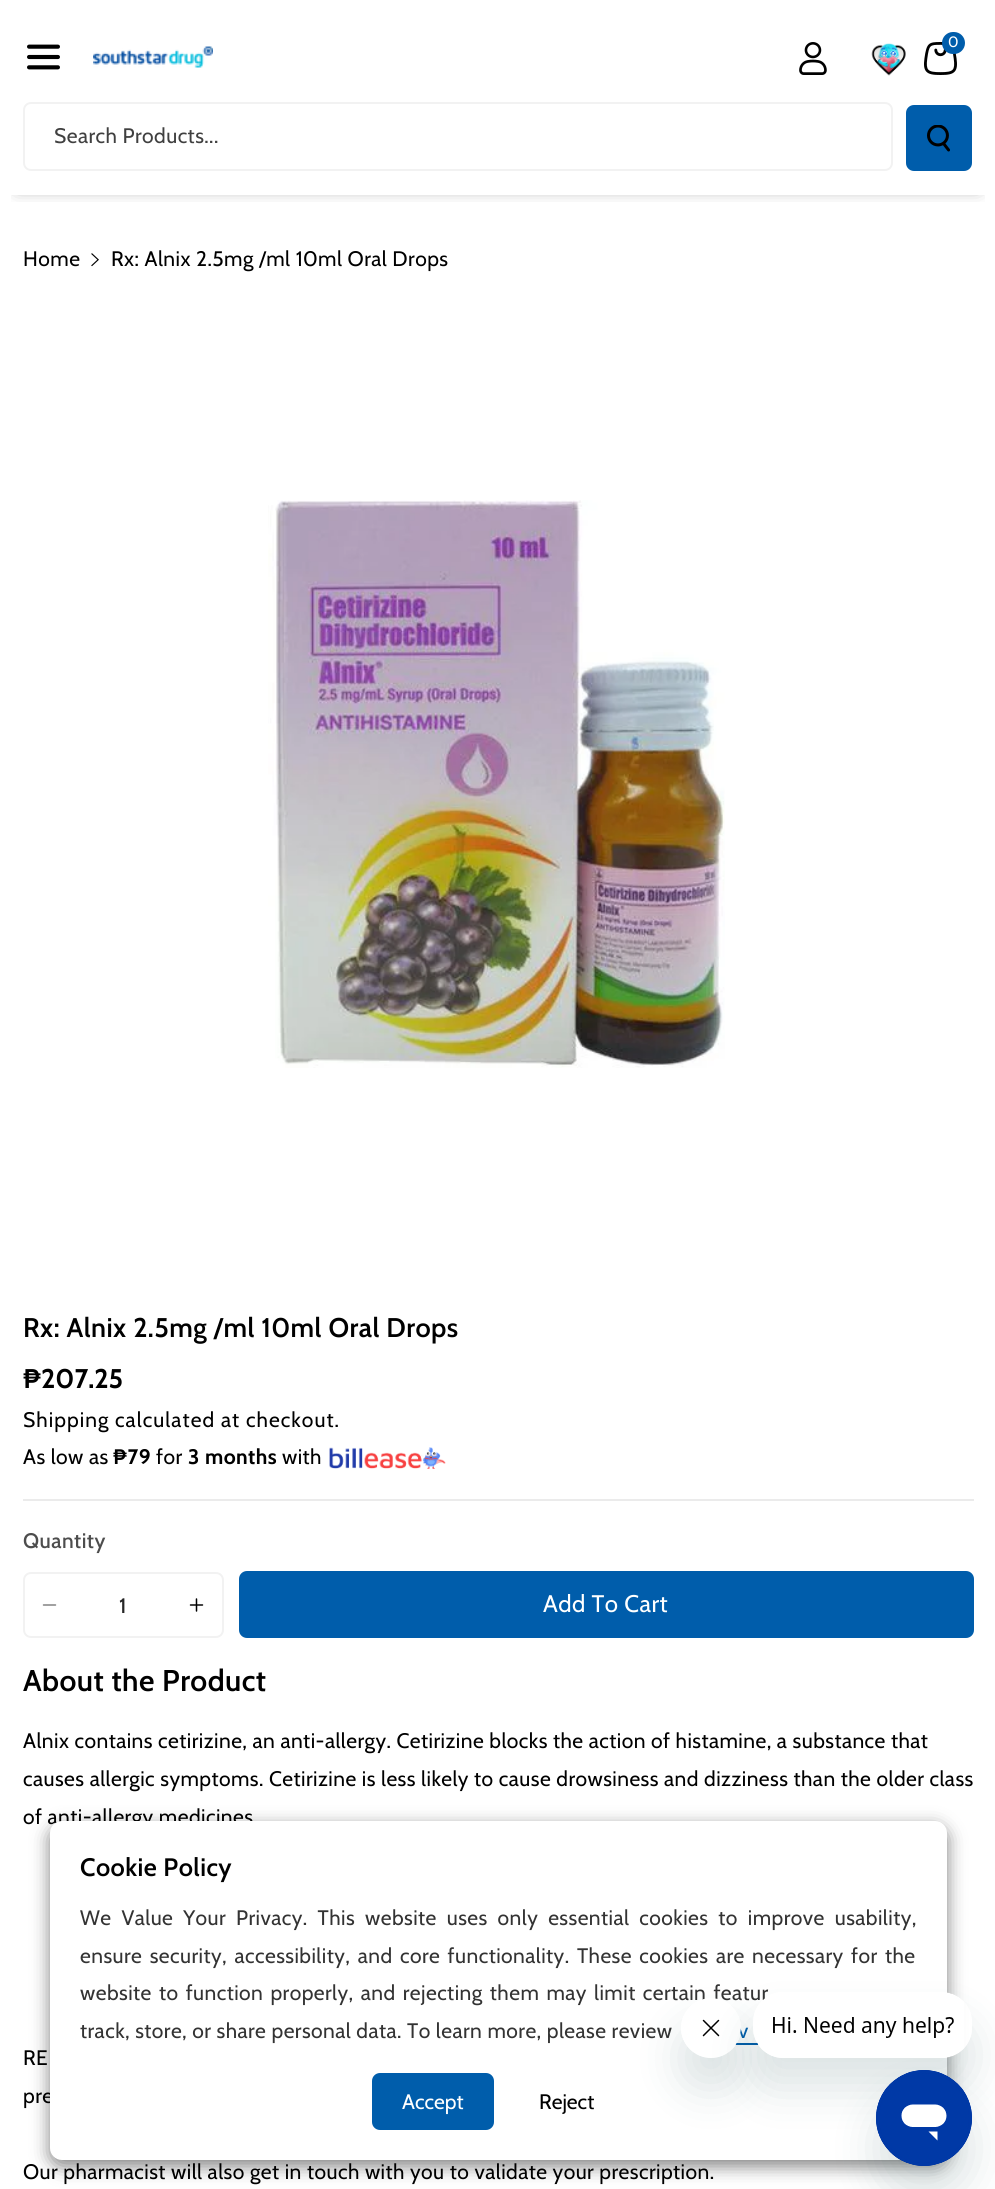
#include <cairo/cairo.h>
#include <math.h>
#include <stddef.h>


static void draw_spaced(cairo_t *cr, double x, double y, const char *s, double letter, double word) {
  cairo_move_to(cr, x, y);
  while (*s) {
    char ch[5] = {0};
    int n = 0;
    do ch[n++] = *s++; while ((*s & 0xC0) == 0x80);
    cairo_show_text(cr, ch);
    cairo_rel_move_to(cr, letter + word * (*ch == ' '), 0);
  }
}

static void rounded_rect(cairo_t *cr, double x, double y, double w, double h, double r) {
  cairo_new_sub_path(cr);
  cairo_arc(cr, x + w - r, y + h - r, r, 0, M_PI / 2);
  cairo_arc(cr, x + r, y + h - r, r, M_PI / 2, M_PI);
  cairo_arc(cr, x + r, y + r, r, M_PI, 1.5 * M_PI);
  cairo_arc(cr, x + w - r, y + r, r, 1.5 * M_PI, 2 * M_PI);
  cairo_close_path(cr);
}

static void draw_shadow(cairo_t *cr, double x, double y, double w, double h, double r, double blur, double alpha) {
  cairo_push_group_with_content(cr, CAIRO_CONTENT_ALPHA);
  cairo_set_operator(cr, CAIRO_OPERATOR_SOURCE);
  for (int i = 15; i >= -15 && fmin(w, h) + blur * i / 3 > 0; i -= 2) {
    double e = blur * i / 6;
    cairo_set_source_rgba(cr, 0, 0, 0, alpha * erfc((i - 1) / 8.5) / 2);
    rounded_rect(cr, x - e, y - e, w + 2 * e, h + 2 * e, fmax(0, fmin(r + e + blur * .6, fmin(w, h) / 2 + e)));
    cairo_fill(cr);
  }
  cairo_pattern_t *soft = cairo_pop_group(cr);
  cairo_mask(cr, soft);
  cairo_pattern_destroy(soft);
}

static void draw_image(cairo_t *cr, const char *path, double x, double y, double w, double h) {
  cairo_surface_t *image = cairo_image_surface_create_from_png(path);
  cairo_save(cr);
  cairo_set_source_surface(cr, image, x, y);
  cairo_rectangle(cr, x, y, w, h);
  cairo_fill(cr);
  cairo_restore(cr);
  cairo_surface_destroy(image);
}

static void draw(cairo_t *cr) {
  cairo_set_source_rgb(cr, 1, 1, 1);
  cairo_paint(cr);
  cairo_save(cr);
  cairo_rectangle(cr, 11, 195, 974, 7);
  cairo_clip(cr);
  cairo_set_source_rgb(cr, 18 / 255.0, 18 / 255.0, 18 / 255.0);
  draw_shadow(cr, 18, 27, 960, 159, 0, 9, 0.6);
  cairo_restore(cr);
  draw_image(cr, "images/1.png", 799, 42, 28, 33);
  draw_image(cr, "images/2.png", 871, 43, 35, 33);
  draw_image(cr, "images/3.png", 924, 42, 33, 33);
  cairo_set_source_rgb(cr, 0, 93 / 255.0, 171 / 255.0);
  rounded_rect(cr, 942, 32, 23, 22, 11);
  cairo_fill(cr);
  draw_image(cr, "images/4.png", 27, 44, 33, 26);
  draw_image(cr, "images/5.png", 93, 46, 120, 22);
  rounded_rect(cr, 24, 103, 868, 67, 7);
  cairo_set_source_rgb(cr, 242 / 255.0, 242 / 255.0, 242 / 255.0);
  cairo_stroke(cr);
  cairo_set_source_rgb(cr, 0, 93 / 255.0, 171 / 255.0);
  rounded_rect(cr, 906, 105, 66, 66, 8);
  cairo_fill(cr);
  draw_image(cr, "images/6.png", 927, 125, 23, 27);
  draw_image(cr, "images/7.png", 91, 253, 8, 14);
  draw_image(cr, "images/8.png", 268, 500, 457, 568);
  cairo_set_source_rgb(cr, 235 / 255.0, 235 / 255.0, 235 / 255.0);
  cairo_rectangle(cr, 23, 1499, 951, 2);
  cairo_fill(cr);
  draw_image(cr, "images/9.png", 329, 1447, 117, 22);
  draw_image(cr, "images/10.png", 42, 1604, 15, 2);
  draw_image(cr, "images/11.png", 189, 1598, 15, 14);
  rounded_rect(cr, 24, 1573, 199, 64, 7);
  cairo_set_source_rgb(cr, 242 / 255.0, 242 / 255.0, 242 / 255.0);
  cairo_stroke(cr);
  cairo_set_source_rgb(cr, 0, 93 / 255.0, 171 / 255.0);
  rounded_rect(cr, 239, 1571, 735, 67, 8);
  cairo_fill(cr);
  cairo_set_source_rgb(cr, 0, 0, 0);
  draw_shadow(cr, 50, 1827, 897, 339, 12, 9, 0.5);
  cairo_select_font_face(cr, "Cabin", CAIRO_FONT_SLANT_NORMAL, CAIRO_FONT_WEIGHT_NORMAL);
  cairo_set_font_size(cr, 15);
  cairo_set_source_rgb(cr, 1, 1, 1);
  draw_spaced(cr, 948, 47, "0", 0.45, 0);
  cairo_set_font_size(cr, 21);
  cairo_set_source_rgb(cr, 64 / 255.0, 64 / 255.0, 64 / 255.0);
  draw_spaced(cr, 54, 143, "Search Products...", 0.45, 0);
  cairo_set_source_rgb(cr, 0, 0, 0);
  draw_spaced(cr, 23, 266, "Home", 0.45, 0);
  draw_spaced(cr, 111, 266, "Rx: Alnix 2.5mg /ml 10ml Oral Drops", 0.45, 0);
  cairo_select_font_face(cr, "Cabin SemiBold", CAIRO_FONT_SLANT_NORMAL, CAIRO_FONT_WEIGHT_NORMAL);
  cairo_set_font_size(cr, 27);
  draw_spaced(cr, 23, 1337, "Rx: Alnix 2.5mg /ml 10ml Oral Drops", 0.45, 0);
  cairo_select_font_face(cr, "Cabin", CAIRO_FONT_SLANT_NORMAL, CAIRO_FONT_WEIGHT_BOLD);
  cairo_move_to(cr, 23, 1388);
  cairo_show_text(cr, "₱207.25");
  cairo_select_font_face(cr, "Cabin", CAIRO_FONT_SLANT_NORMAL, CAIRO_FONT_WEIGHT_NORMAL);
  cairo_set_font_size(cr, 21);
  draw_spaced(cr, 23, 1427, "Shipping", 1.05, 0);
  draw_spaced(cr, 115, 1427, "calculated at checkout.", 1.05, 0);
  draw_spaced(cr, 23, 1464, "As low as", 0.45, 0);
  cairo_select_font_face(cr, "Cabin", CAIRO_FONT_SLANT_NORMAL, CAIRO_FONT_WEIGHT_BOLD);
  draw_spaced(cr, 113, 1464, "₱79", 0.45, 0);
  cairo_select_font_face(cr, "Cabin", CAIRO_FONT_SLANT_NORMAL, CAIRO_FONT_WEIGHT_NORMAL);
  draw_spaced(cr, 156, 1464, "for", 0.45, 0);
  cairo_select_font_face(cr, "Cabin", CAIRO_FONT_SLANT_NORMAL, CAIRO_FONT_WEIGHT_BOLD);
  draw_spaced(cr, 188, 1464, "3 months", 0.45, 0);
  cairo_select_font_face(cr, "Cabin", CAIRO_FONT_SLANT_NORMAL, CAIRO_FONT_WEIGHT_NORMAL);
  draw_spaced(cr, 282, 1464, "with", 0.45, 0);
  cairo_select_font_face(cr, "Cabin Medium", CAIRO_FONT_SLANT_NORMAL, CAIRO_FONT_WEIGHT_NORMAL);
  cairo_set_source_rgb(cr, 77 / 255.0, 77 / 255.0, 77 / 255.0);
  draw_spaced(cr, 23, 1548, "Quantity", 0.45, 0);
  cairo_set_source_rgb(cr, 38 / 255.0, 38 / 255.0, 38 / 255.0);
  cairo_move_to(cr, 119, 1613);
  cairo_show_text(cr, "1");
  cairo_select_font_face(cr, "Cabin", CAIRO_FONT_SLANT_NORMAL, CAIRO_FONT_WEIGHT_NORMAL);
  cairo_set_font_size(cr, 24);
  cairo_set_source_rgb(cr, 1, 1, 1);
  draw_spaced(cr, 543, 1612, "Add To Cart", 0.45, 0);
  cairo_select_font_face(cr, "Cabin SemiBold", CAIRO_FONT_SLANT_NORMAL, CAIRO_FONT_WEIGHT_NORMAL);
  cairo_set_font_size(cr, 30);
  cairo_set_source_rgb(cr, 0, 0, 0);
  draw_spaced(cr, 23, 1691, "About the Product", 0.45, 0);
  cairo_select_font_face(cr, "Cabin", CAIRO_FONT_SLANT_NORMAL, CAIRO_FONT_WEIGHT_NORMAL);
  cairo_set_font_size(cr, 21);
  draw_spaced(cr, 23, 1748, "Alnix contains cetirizine, an anti-allergy. Cetirizine blocks the action of histamine, a substance that", 0.45, 0);
  draw_spaced(cr, 23, 1786, "causes allergic symptoms. Cetirizine is less likely to cause drowsiness and dizziness than the older class", 0.45, 0);
  draw_spaced(cr, 23, 1824, "of anti-allergy medicines", 0.45, 0);
  draw_spaced(cr, 23, 2065, "RE", 0.45, 0);
  draw_spaced(cr, 23, 2103, "pre", 0.45, 0);
  draw_spaced(cr, 23, 2179, "Our pharmacist will also get in touch with you to validate your prescription.", 0.45, 0);
  cairo_set_source_rgb(cr, 1, 1, 1);
  rounded_rect(cr, 50, 1821, 897, 339, 12);
  cairo_fill(cr);
  cairo_select_font_face(cr, "Cabin SemiBold", CAIRO_FONT_SLANT_NORMAL, CAIRO_FONT_WEIGHT_NORMAL);
  cairo_set_font_size(cr, 25.25);
  cairo_set_source_rgb(cr, 0, 0, 0);
  draw_spaced(cr, 80, 1876, "Cookie Policy", 0.45, 0);
  cairo_select_font_face(cr, "Cabin", CAIRO_FONT_SLANT_NORMAL, CAIRO_FONT_WEIGHT_NORMAL);
  cairo_set_font_size(cr, 21);
  cairo_set_source_rgb(cr, 51 / 255.0, 51 / 255.0, 51 / 255.0);
  draw_spaced(cr, 80, 1925, "We Value Your Privacy. This website uses only essential cookies to improve usability,", 0.45, 4.75);
  draw_spaced(cr, 80, 1963, "ensure security, accessibility, and core functionality. These cookies are necessary for the", 0.45, 2.25);
  draw_spaced(cr, 80, 2000, "website to function properly, and rejecting them may limit certain featur", 0.45, 2);
  draw_spaced(cr, 80, 2038, "track, store, or share personal data. To learn more, please review", 0.45, 0);
  cairo_set_source_rgb(cr, 0, 93 / 255.0, 171 / 255.0);
  draw_spaced(cr, 738, 2038, "v", 0.45, 0);
  cairo_rectangle(cr, 735, 2043, 24, 2);
  cairo_fill(cr);
  rounded_rect(cr, 372, 2073, 122, 57, 8);
  cairo_fill(cr);
  cairo_set_source_rgb(cr, 1, 1, 1);
  cairo_move_to(cr, 402, 2109);
  cairo_show_text(cr, "Accept");
  cairo_set_source_rgb(cr, 0, 0, 0);
  cairo_move_to(cr, 539, 2109);
  cairo_show_text(cr, "Reject");
  cairo_save(cr);
  cairo_set_fill_rule(cr, CAIRO_FILL_RULE_EVEN_ODD);
  cairo_new_path(cr);
  cairo_move_to(cr, 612, 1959);
  cairo_line_to(cr, 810, 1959);
  cairo_line_to(cr, 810, 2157);
  cairo_line_to(cr, 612, 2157);
  cairo_close_path(cr);
  cairo_move_to(cr, 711, 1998);
  cairo_curve_to(cr, 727.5, 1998, 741, 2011.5, 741, 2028);
  cairo_curve_to(cr, 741, 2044.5, 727.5, 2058, 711, 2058);
  cairo_curve_to(cr, 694.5, 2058, 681, 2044.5, 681, 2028);
  cairo_curve_to(cr, 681, 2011.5, 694.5, 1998, 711, 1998);
  cairo_close_path(cr);
  cairo_clip(cr);
  cairo_set_source_rgb(cr, 23 / 255.0, 73 / 255.0, 77 / 255.0);
  draw_shadow(cr, 681, 2028, 60, 60, 30, 22.5, 0.15);
  cairo_restore(cr);
  draw_image(cr, "images/13.png", 681, 1998, 60, 47);
  cairo_save(cr);
  cairo_set_fill_rule(cr, CAIRO_FILL_RULE_EVEN_ODD);
  cairo_new_path(cr);
  cairo_move_to(cr, 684, 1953);
  cairo_line_to(cr, 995, 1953);
  cairo_line_to(cr, 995, 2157);
  cairo_line_to(cr, 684, 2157);
  cairo_close_path(cr);
  cairo_move_to(cr, 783, 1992);
  cairo_line_to(cr, 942, 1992);
  cairo_curve_to(cr, 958.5, 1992, 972, 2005.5, 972, 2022);
  cairo_line_to(cr, 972, 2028);
  cairo_curve_to(cr, 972, 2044.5, 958.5, 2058, 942, 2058);
  cairo_line_to(cr, 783, 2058);
  cairo_curve_to(cr, 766.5, 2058, 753, 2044.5, 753, 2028);
  cairo_line_to(cr, 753, 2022);
  cairo_curve_to(cr, 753, 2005.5, 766.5, 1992, 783, 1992);
  cairo_close_path(cr);
  cairo_clip(cr);
  cairo_set_source_rgb(cr, 23 / 255.0, 73 / 255.0, 77 / 255.0);
  draw_shadow(cr, 753, 2022, 219, 66, 30, 22.5, 0.15);
  cairo_restore(cr);
  draw_image(cr, "images/12.png", 753, 1992, 211, 66);
  cairo_set_source_rgb(cr, 23 / 255.0, 73 / 255.0, 77 / 255.0);
  draw_shadow(cr, 876, 2100, 96, 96, 48, 22.5, 0.15);
  draw_image(cr, "images/14.png", 876, 2070, 96, 96);
}

int main(void) {
  cairo_surface_t *surface = cairo_image_surface_create(CAIRO_FORMAT_RGB24, 995, 2189);
  cairo_t *cr = cairo_create(surface);
  cairo_font_options_t *options = cairo_font_options_create();
  cairo_font_options_set_hint_metrics(options, CAIRO_HINT_METRICS_OFF);
  cairo_font_options_set_hint_style(options, CAIRO_HINT_STYLE_NONE);
  cairo_set_font_options(cr, options);
  cairo_set_miter_limit(cr, 4);
  draw(cr);
  cairo_surface_write_to_png(surface, "out.png");
  cairo_font_options_destroy(options);
  cairo_destroy(cr);
  cairo_surface_destroy(surface);
  return 0;
}
